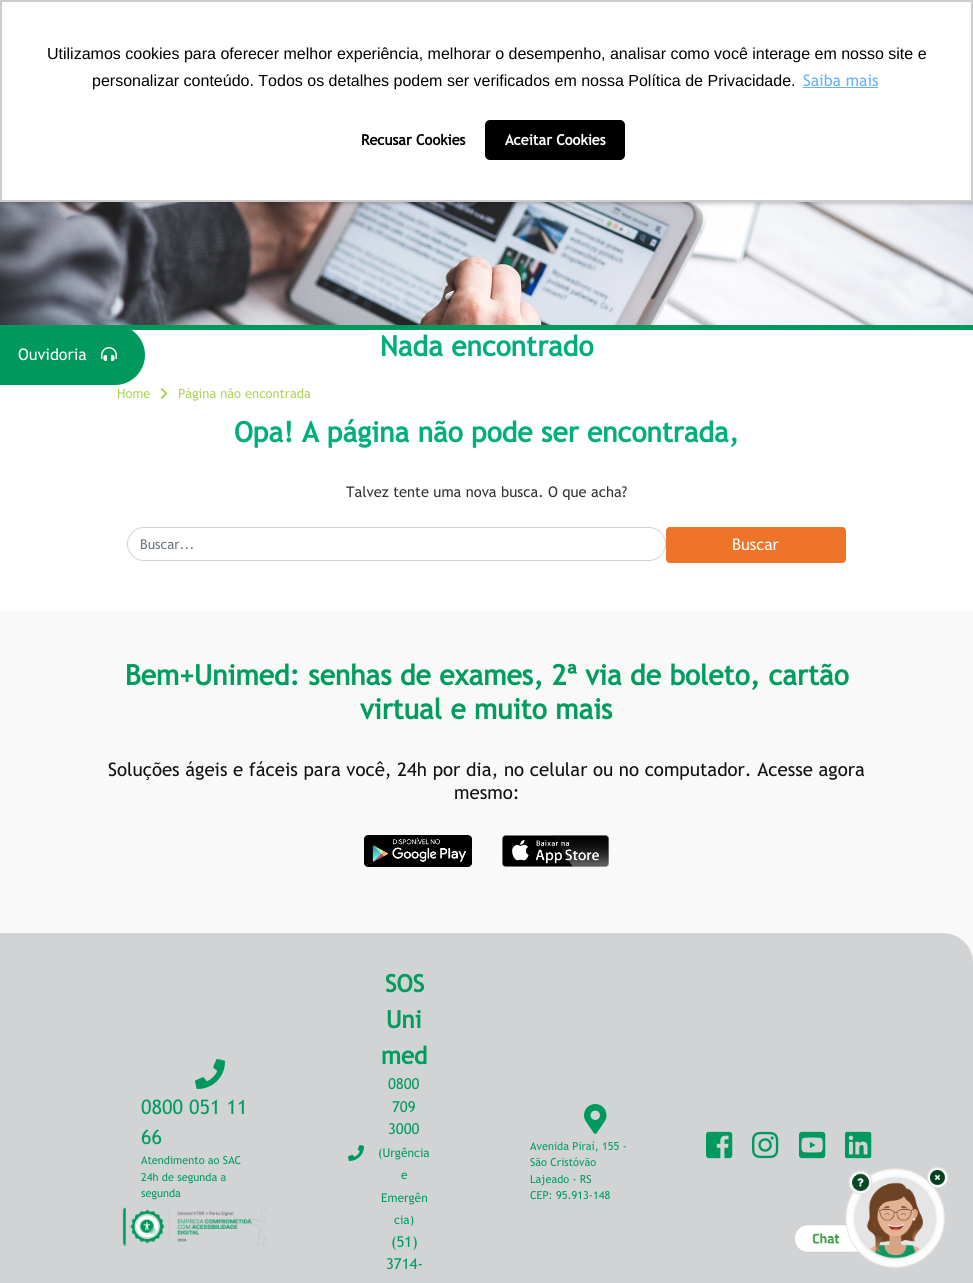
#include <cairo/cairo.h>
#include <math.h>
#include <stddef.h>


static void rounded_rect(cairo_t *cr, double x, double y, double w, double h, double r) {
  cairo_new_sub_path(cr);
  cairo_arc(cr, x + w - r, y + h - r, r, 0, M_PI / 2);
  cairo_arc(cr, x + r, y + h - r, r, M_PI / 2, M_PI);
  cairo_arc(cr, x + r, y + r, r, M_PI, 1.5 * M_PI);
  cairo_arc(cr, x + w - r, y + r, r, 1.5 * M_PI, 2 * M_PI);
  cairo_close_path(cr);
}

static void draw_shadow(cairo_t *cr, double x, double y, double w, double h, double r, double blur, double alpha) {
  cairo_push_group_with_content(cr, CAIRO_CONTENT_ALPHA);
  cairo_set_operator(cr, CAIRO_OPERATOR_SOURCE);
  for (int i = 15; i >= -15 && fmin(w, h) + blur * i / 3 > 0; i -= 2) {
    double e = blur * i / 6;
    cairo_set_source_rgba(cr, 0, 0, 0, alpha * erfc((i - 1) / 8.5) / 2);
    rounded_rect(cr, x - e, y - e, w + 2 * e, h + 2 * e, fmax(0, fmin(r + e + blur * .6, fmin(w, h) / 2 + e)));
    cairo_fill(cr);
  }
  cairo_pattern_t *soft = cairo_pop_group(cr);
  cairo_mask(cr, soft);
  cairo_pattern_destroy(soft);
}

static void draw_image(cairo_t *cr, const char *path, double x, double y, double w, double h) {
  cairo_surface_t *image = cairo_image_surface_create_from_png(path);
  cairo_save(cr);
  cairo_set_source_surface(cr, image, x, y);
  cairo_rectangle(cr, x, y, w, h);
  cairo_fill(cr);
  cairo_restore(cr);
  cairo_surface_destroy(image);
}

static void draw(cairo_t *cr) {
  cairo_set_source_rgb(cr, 1, 1, 1);
  cairo_paint(cr);
  draw_image(cr, "images/2.png", 0, 202, 973, 123);
  cairo_set_source_rgb(cr, 0, 0, 0);
  draw_shadow(cr, 1, 2, 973, 202, 0, 2, 0.1);
  draw_shadow(cr, 1, 2, 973, 202, 0, 2, 0.1);
  cairo_set_source_rgb(cr, 1, 1, 1);
  cairo_rectangle(cr, 1, 1, 971, 200);
  cairo_fill_preserve(cr);
  cairo_set_source_rgb(cr, 204 / 255.0, 204 / 255.0, 204 / 255.0);
  cairo_stroke(cr);
  cairo_set_source_rgb(cr, 102 / 255.0, 176 / 255.0, 1);
  cairo_rectangle(cr, 803, 87, 75, 1);
  cairo_fill(cr);
  cairo_set_source_rgb(cr, 0, 0, 0);
  rounded_rect(cr, 485, 120, 140, 40, 5);
  cairo_fill(cr);
  cairo_set_source_rgb(cr, 0, 153 / 255.0, 93 / 255.0);
  cairo_rectangle(cr, 115, 325, 858, 5);
  cairo_fill(cr);
  cairo_new_path(cr);
  cairo_move_to(cr, 0, 325);
  cairo_line_to(cr, 115, 325);
  cairo_curve_to(cr, 131.5, 325, 145, 338.5, 145, 355);
  cairo_curve_to(cr, 145, 371.5, 131.5, 385, 115, 385);
  cairo_line_to(cr, 0, 385);
  cairo_close_path(cr);
  cairo_fill(cr);
  draw_image(cr, "images/1.png", 101, 347, 16, 14);
  draw_image(cr, "images/3.png", 160, 388, 8, 11);
  rounded_rect(cr, 127.5, 527.5, 538, 33, 16.5);
  cairo_set_source_rgb(cr, 206 / 255.0, 212 / 255.0, 218 / 255.0);
  cairo_set_line_width(cr, 1);
  cairo_stroke(cr);
  cairo_set_source_rgb(cr, 238 / 255.0, 116 / 255.0, 41 / 255.0);
  rounded_rect(cr, 666, 527, 180, 36, 4);
  cairo_fill(cr);
  cairo_set_source_rgb(cr, 249 / 255.0, 249 / 255.0, 249 / 255.0);
  cairo_rectangle(cr, 0, 611, 973, 352);
  cairo_fill(cr);
  draw_image(cr, "images/4.png", 364, 835, 108, 32);
  draw_image(cr, "images/5.png", 502, 835, 107, 32);
  cairo_set_source_rgb(cr, 210 / 255.0, 211 / 255.0, 213 / 255.0);
  cairo_new_path(cr);
  cairo_move_to(cr, 0, 933);
  cairo_line_to(cr, 943, 933);
  cairo_curve_to(cr, 959.5, 933, 973, 946.5, 973, 963);
  cairo_line_to(cr, 973, 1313);
  cairo_line_to(cr, 30, 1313);
  cairo_curve_to(cr, 13.5, 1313, 0, 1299.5, 0, 1283);
  cairo_close_path(cr);
  cairo_fill(cr);
  draw_image(cr, "images/6.png", 195, 1059, 30, 30);
  draw_image(cr, "images/7.png", 122, 1207, 145, 40);
  draw_image(cr, "images/8.png", 348, 1145, 16, 16);
  draw_image(cr, "images/9.png", 584, 1104, 23, 30);
  draw_image(cr, "images/10.png", 706, 1131, 27, 28);
  draw_image(cr, "images/11.png", 752, 1131, 27, 28);
  draw_image(cr, "images/12.png", 799, 1131, 27, 28);
  draw_image(cr, "images/13.png", 845, 1131, 27, 28);
  draw_image(cr, "images/15.png", 794, 1224, 66, 29);
  draw_image(cr, "images/16.png", 845, 1168, 100, 100);
  draw_image(cr, "images/14.png", 927, 1167, 21, 21);
  cairo_select_font_face(cr, "Liberation Sans", CAIRO_FONT_SLANT_NORMAL, CAIRO_FONT_WEIGHT_NORMAL);
  cairo_set_font_size(cr, 16);
  cairo_set_source_rgb(cr, 0, 0, 0);
  cairo_move_to(cr, 47, 59);
  cairo_show_text(cr, "Utilizamos cookies para oferecer melhor experiência, melhorar o desempenho, analisar como você interage em nosso site e");
  cairo_move_to(cr, 92, 86);
  cairo_show_text(cr, "personalizar conteúdo. Todos os detalhes podem ser verificados em nossa Política de Privacidade.");
  cairo_select_font_face(cr, "Trebuchet MS", CAIRO_FONT_SLANT_NORMAL, CAIRO_FONT_WEIGHT_NORMAL);
  cairo_set_source_rgb(cr, 102 / 255.0, 176 / 255.0, 1);
  cairo_move_to(cr, 803, 86);
  cairo_show_text(cr, "Saiba mais");
  cairo_select_font_face(cr, "Trebuchet MS", CAIRO_FONT_SLANT_NORMAL, CAIRO_FONT_WEIGHT_BOLD);
  cairo_set_font_size(cr, 14.5);
  cairo_set_source_rgb(cr, 0, 0, 0);
  cairo_move_to(cr, 361, 145);
  cairo_show_text(cr, "Recusar Cookies");
  cairo_set_source_rgb(cr, 1, 1, 1);
  cairo_move_to(cr, 505, 145);
  cairo_show_text(cr, "Aceitar Cookies");
  cairo_select_font_face(cr, "Trebuchet MS", CAIRO_FONT_SLANT_NORMAL, CAIRO_FONT_WEIGHT_NORMAL);
  cairo_set_font_size(cr, 16);
  cairo_move_to(cr, 18, 360);
  cairo_show_text(cr, "Ouvidoria");
  cairo_select_font_face(cr, "Trebuchet MS", CAIRO_FONT_SLANT_NORMAL, CAIRO_FONT_WEIGHT_BOLD);
  cairo_set_font_size(cr, 28);
  cairo_set_source_rgb(cr, 0, 175 / 255.0, 123 / 255.0);
  cairo_move_to(cr, 380, 356);
  cairo_show_text(cr, "Nada encontrado");
  cairo_select_font_face(cr, "Trebuchet MS", CAIRO_FONT_SLANT_NORMAL, CAIRO_FONT_WEIGHT_NORMAL);
  cairo_set_font_size(cr, 13);
  cairo_set_source_rgb(cr, 174 / 255.0, 211 / 255.0, 85 / 255.0);
  cairo_move_to(cr, 117, 398);
  cairo_show_text(cr, "Home");
  cairo_move_to(cr, 178, 398);
  cairo_show_text(cr, "Página não encontrada");
  cairo_select_font_face(cr, "Trebuchet MS", CAIRO_FONT_SLANT_NORMAL, CAIRO_FONT_WEIGHT_BOLD);
  cairo_set_font_size(cr, 28);
  cairo_set_source_rgb(cr, 0, 175 / 255.0, 123 / 255.0);
  cairo_move_to(cr, 234, 442);
  cairo_show_text(cr, "Opa! A página não pode ser encontrada,");
  cairo_select_font_face(cr, "Trebuchet MS", CAIRO_FONT_SLANT_NORMAL, CAIRO_FONT_WEIGHT_NORMAL);
  cairo_set_font_size(cr, 14.7);
  cairo_set_source_rgb(cr, 51 / 255.0, 51 / 255.0, 51 / 255.0);
  cairo_move_to(cr, 346, 497);
  cairo_show_text(cr, "Talvez tente uma nova busca. O que acha?");
  cairo_set_font_size(cr, 13.5);
  cairo_set_source_rgb(cr, 108 / 255.0, 117 / 255.0, 125 / 255.0);
  cairo_move_to(cr, 140, 549);
  cairo_show_text(cr, "Buscar...");
  cairo_set_font_size(cr, 16);
  cairo_set_source_rgb(cr, 1, 1, 1);
  cairo_move_to(cr, 732, 550);
  cairo_show_text(cr, "Buscar");
  cairo_select_font_face(cr, "Trebuchet MS", CAIRO_FONT_SLANT_NORMAL, CAIRO_FONT_WEIGHT_BOLD);
  cairo_set_font_size(cr, 28);
  cairo_set_source_rgb(cr, 0, 157 / 255.0, 95 / 255.0);
  cairo_move_to(cr, 125, 685);
  cairo_show_text(cr, "Bem+Unimed: senhas de exames, 2ª via de boleto, cartão");
  cairo_move_to(cr, 360, 719);
  cairo_show_text(cr, "virtual e muito mais");
  cairo_select_font_face(cr, "Trebuchet MS", CAIRO_FONT_SLANT_NORMAL, CAIRO_FONT_WEIGHT_NORMAL);
  cairo_set_font_size(cr, 18.65);
  cairo_set_source_rgb(cr, 17 / 255.0, 17 / 255.0, 17 / 255.0);
  cairo_move_to(cr, 108, 776);
  cairo_show_text(cr, "Soluções ágeis e fáceis para você, 24h por dia, no celular ou no computador. Acesse agora");
  cairo_move_to(cr, 454, 799);
  cairo_show_text(cr, "mesmo:");
  cairo_set_font_size(cr, 20);
  cairo_set_source_rgb(cr, 0, 157 / 255.0, 95 / 255.0);
  cairo_move_to(cr, 141, 1114);
  cairo_show_text(cr, "0800 051 11");
  cairo_move_to(cr, 141, 1144);
  cairo_show_text(cr, "66");
  cairo_set_font_size(cr, 11);
  cairo_move_to(cr, 141, 1164);
  cairo_show_text(cr, "Atendimento ao SAC");
  cairo_move_to(cr, 141, 1181);
  cairo_show_text(cr, "24h de segunda a");
  cairo_move_to(cr, 141, 1197);
  cairo_show_text(cr, "segunda");
  cairo_select_font_face(cr, "Trebuchet MS", CAIRO_FONT_SLANT_NORMAL, CAIRO_FONT_WEIGHT_BOLD);
  cairo_set_font_size(cr, 24);
  cairo_move_to(cr, 385, 992);
  cairo_show_text(cr, "SOS");
  cairo_move_to(cr, 386, 1028);
  cairo_show_text(cr, "Uni");
  cairo_move_to(cr, 381, 1064);
  cairo_show_text(cr, "med");
  cairo_select_font_face(cr, "Trebuchet MS", CAIRO_FONT_SLANT_NORMAL, CAIRO_FONT_WEIGHT_NORMAL);
  cairo_set_font_size(cr, 15);
  cairo_move_to(cr, 388, 1089);
  cairo_show_text(cr, "0800");
  cairo_move_to(cr, 392, 1112);
  cairo_show_text(cr, "709");
  cairo_move_to(cr, 388, 1134);
  cairo_show_text(cr, "3000");
  cairo_set_font_size(cr, 12);
  cairo_move_to(cr, 378, 1157);
  cairo_show_text(cr, "(Urgência");
  cairo_move_to(cr, 401, 1179);
  cairo_show_text(cr, "e");
  cairo_move_to(cr, 381, 1202);
  cairo_show_text(cr, "Emergên");
  cairo_move_to(cr, 394, 1224);
  cairo_show_text(cr, "cia)");
  cairo_set_font_size(cr, 15);
  cairo_move_to(cr, 391, 1247);
  cairo_show_text(cr, "(51)");
  cairo_move_to(cr, 386, 1269);
  cairo_show_text(cr, "3714-");
  cairo_set_font_size(cr, 11);
  cairo_move_to(cr, 530, 1150);
  cairo_show_text(cr, "Avenida Piraí, 155 -");
  cairo_move_to(cr, 530, 1166);
  cairo_show_text(cr, "São Cristóvão");
  cairo_move_to(cr, 530, 1183);
  cairo_show_text(cr, "Lajeado - RS");
  cairo_move_to(cr, 530, 1199);
  cairo_show_text(cr, "CEP: 95.913-148");
}

int main(void) {
  cairo_surface_t *surface = cairo_image_surface_create(CAIRO_FORMAT_RGB24, 973, 1283);
  cairo_t *cr = cairo_create(surface);
  cairo_font_options_t *options = cairo_font_options_create();
  cairo_font_options_set_hint_metrics(options, CAIRO_HINT_METRICS_OFF);
  cairo_font_options_set_hint_style(options, CAIRO_HINT_STYLE_NONE);
  cairo_set_font_options(cr, options);
  cairo_set_miter_limit(cr, 4);
  draw(cr);
  cairo_surface_write_to_png(surface, "out.png");
  cairo_font_options_destroy(options);
  cairo_destroy(cr);
  cairo_surface_destroy(surface);
  return 0;
}
